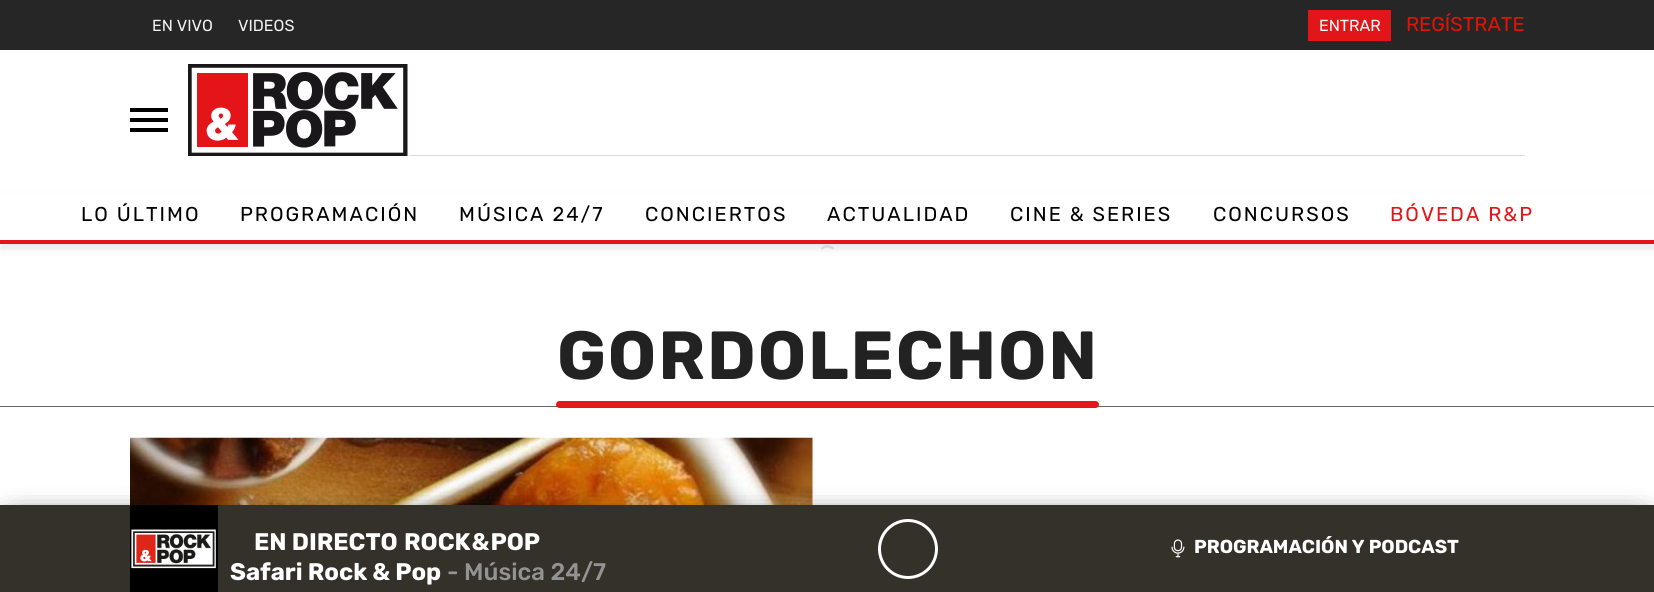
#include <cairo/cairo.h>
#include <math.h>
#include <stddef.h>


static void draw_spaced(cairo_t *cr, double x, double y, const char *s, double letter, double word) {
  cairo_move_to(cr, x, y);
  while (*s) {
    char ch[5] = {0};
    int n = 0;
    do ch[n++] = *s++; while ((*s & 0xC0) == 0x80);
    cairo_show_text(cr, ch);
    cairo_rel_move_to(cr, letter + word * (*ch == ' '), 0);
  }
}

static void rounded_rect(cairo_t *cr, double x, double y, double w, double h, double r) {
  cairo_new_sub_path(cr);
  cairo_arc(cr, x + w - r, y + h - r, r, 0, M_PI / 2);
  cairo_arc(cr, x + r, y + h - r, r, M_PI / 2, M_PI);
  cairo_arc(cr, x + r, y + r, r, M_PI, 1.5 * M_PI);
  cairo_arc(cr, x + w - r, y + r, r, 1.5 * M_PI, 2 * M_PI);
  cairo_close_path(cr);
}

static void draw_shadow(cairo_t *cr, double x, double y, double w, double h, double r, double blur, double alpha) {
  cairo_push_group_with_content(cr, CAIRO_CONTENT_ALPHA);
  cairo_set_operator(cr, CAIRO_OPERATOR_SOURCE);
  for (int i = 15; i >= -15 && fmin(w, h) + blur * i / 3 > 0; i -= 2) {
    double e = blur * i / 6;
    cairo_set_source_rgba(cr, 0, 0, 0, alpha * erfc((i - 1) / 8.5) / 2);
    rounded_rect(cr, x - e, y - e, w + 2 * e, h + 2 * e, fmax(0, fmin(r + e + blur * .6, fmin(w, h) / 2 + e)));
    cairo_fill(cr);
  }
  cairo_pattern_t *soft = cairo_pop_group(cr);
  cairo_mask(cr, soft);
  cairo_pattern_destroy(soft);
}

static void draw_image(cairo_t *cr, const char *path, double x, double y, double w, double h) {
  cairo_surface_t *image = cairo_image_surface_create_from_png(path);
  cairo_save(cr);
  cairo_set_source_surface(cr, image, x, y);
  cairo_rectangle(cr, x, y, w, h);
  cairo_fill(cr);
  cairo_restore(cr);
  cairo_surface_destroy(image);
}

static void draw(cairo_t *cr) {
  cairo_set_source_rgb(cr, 1, 1, 1);
  cairo_paint(cr);
  cairo_set_source_rgb(cr, 38 / 255.0, 38 / 255.0, 38 / 255.0);
  cairo_rectangle(cr, 0, 0, 1654, 50);
  cairo_fill(cr);
  cairo_set_source_rgb(cr, 226 / 255.0, 22 / 255.0, 24 / 255.0);
  cairo_rectangle(cr, 1308, 10, 83, 31);
  cairo_fill(cr);
  cairo_set_source_rgb(cr, 0, 0, 0);
  cairo_rectangle(cr, 130, 108, 38, 4);
  cairo_fill(cr);
  cairo_rectangle(cr, 130, 118, 38, 4);
  cairo_fill(cr);
  cairo_rectangle(cr, 130, 128, 38, 4);
  cairo_fill(cr);
  draw_image(cr, "images/1.png", 188, 64, 220, 92);
  cairo_set_source_rgb(cr, 218 / 255.0, 218 / 255.0, 218 / 255.0);
  cairo_rectangle(cr, 409, 155, 1116, 1);
  cairo_fill(cr);
  cairo_new_path(cr);
  cairo_move_to(cr, 821.5, 249);
  cairo_curve_to(cr, 824.5, 245.5, 830.5, 245.5, 833.5, 249);
  cairo_set_source_rgb(cr, 230 / 255.0, 230 / 255.0, 230 / 255.0);
  cairo_set_line_width(cr, 2.5);
  cairo_stroke(cr);
  cairo_set_source_rgb(cr, 34 / 255.0, 34 / 255.0, 34 / 255.0);
  draw_shadow(cr, 0, 196, 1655, 54, 0, 3, 0.09);
  cairo_set_source_rgb(cr, 1, 1, 1);
  cairo_rectangle(cr, 0, 193, 1654, 47);
  cairo_fill(cr);
  cairo_set_source_rgb(cr, 226 / 255.0, 22 / 255.0, 24 / 255.0);
  cairo_rectangle(cr, 0, 240, 1654, 4);
  cairo_fill(cr);
  cairo_set_source_rgb(cr, 102 / 255.0, 102 / 255.0, 102 / 255.0);
  cairo_rectangle(cr, 0, 406, 1654, 1);
  cairo_fill(cr);
  cairo_set_source_rgb(cr, 226 / 255.0, 24 / 255.0, 26 / 255.0);
  rounded_rect(cr, 556, 401, 543, 7, 3.5);
  cairo_fill(cr);
  draw_image(cr, "images/2.png", 130, 437, 683, 68);
  cairo_set_source_rgb(cr, 0, 0, 0);
  draw_shadow(cr, 21, 518, 1630, 62, 0, 12.5, 0.5);
  draw_shadow(cr, 4, 518, 1630, 62, 0, 12.5, 0.5);
  cairo_set_source_rgb(cr, 52 / 255.0, 48 / 255.0, 42 / 255.0);
  cairo_rectangle(cr, 0, 505, 1654, 87);
  cairo_fill(cr);
  draw_image(cr, "images/3.png", 130, 505, 88, 87);
  cairo_arc(cr, 908, 549, 28.5, 0, 2 * M_PI);
  cairo_set_source_rgb(cr, 1, 1, 1);
  cairo_set_line_width(cr, 3);
  cairo_stroke(cr);
  draw_image(cr, "images/4.png", 1171, 539, 14, 19);
  cairo_select_font_face(cr, "Rubik", CAIRO_FONT_SLANT_NORMAL, CAIRO_FONT_WEIGHT_NORMAL);
  cairo_set_font_size(cr, 16);
  cairo_set_source_rgb(cr, 243 / 255.0, 240 / 255.0, 240 / 255.0);
  cairo_move_to(cr, 152, 31);
  cairo_show_text(cr, "EN VIVO");
  cairo_move_to(cr, 238, 31);
  cairo_show_text(cr, "VIDEOS");
  cairo_set_source_rgb(cr, 1, 1, 1);
  cairo_move_to(cr, 1319, 31);
  cairo_show_text(cr, "ENTRAR");
  cairo_set_font_size(cr, 20);
  cairo_set_source_rgb(cr, 225 / 255.0, 19 / 255.0, 6 / 255.0);
  cairo_move_to(cr, 1406, 31);
  cairo_show_text(cr, "REGÍSTRATE");
  cairo_set_source_rgb(cr, 0, 0, 0);
  draw_spaced(cr, 81, 221, "LO ÚLTIMO", 2, 0);
  draw_spaced(cr, 240, 221, "PROGRAMACIÓN", 2, 0);
  draw_spaced(cr, 459, 221, "MÚSICA 24/7", 2, 0);
  draw_spaced(cr, 645, 221, "CONCIERTOS", 2, 0);
  draw_spaced(cr, 827, 221, "ACTUALIDAD", 2, 0);
  draw_spaced(cr, 1010, 221, "CINE & SERIES", 2, 0);
  draw_spaced(cr, 1213, 221, "CONCURSOS", 2, 0);
  cairo_set_source_rgb(cr, 226 / 255.0, 22 / 255.0, 25 / 255.0);
  draw_spaced(cr, 1390, 221, "BÓVEDA R&P", 2, 0);
  cairo_select_font_face(cr, "Rubik", CAIRO_FONT_SLANT_NORMAL, CAIRO_FONT_WEIGHT_BOLD);
  cairo_set_font_size(cr, 68);
  cairo_set_source_rgb(cr, 34 / 255.0, 34 / 255.0, 34 / 255.0);
  draw_spaced(cr, 557, 379, "GORDOLECHON", 1.9, 0);
  cairo_set_font_size(cr, 24);
  cairo_set_source_rgb(cr, 1, 1, 1);
  cairo_move_to(cr, 254, 550);
  cairo_show_text(cr, "EN DIRECTO");
  draw_spaced(cr, 404, 550, "ROCK & POP", 0, -4);
  cairo_move_to(cr, 230, 580);
  cairo_show_text(cr, "Safari Rock & Pop");
  cairo_select_font_face(cr, "Rubik Medium", CAIRO_FONT_SLANT_NORMAL, CAIRO_FONT_WEIGHT_NORMAL);
  cairo_set_source_rgb(cr, 147 / 255.0, 147 / 255.0, 147 / 255.0);
  cairo_move_to(cr, 447, 580);
  cairo_show_text(cr, "- Música 24/7");
  cairo_select_font_face(cr, "Rubik", CAIRO_FONT_SLANT_NORMAL, CAIRO_FONT_WEIGHT_BOLD);
  cairo_set_font_size(cr, 18.75);
  cairo_set_source_rgb(cr, 1, 1, 1);
  cairo_move_to(cr, 1194, 553);
  cairo_show_text(cr, "PROGRAMACIÓN Y PODCAST");
}

int main(void) {
  cairo_surface_t *surface = cairo_image_surface_create(CAIRO_FORMAT_RGB24, 1654, 592);
  cairo_t *cr = cairo_create(surface);
  cairo_font_options_t *options = cairo_font_options_create();
  cairo_font_options_set_hint_metrics(options, CAIRO_HINT_METRICS_OFF);
  cairo_font_options_set_hint_style(options, CAIRO_HINT_STYLE_NONE);
  cairo_set_font_options(cr, options);
  cairo_set_miter_limit(cr, 4);
  draw(cr);
  cairo_surface_write_to_png(surface, "out.png");
  cairo_font_options_destroy(options);
  cairo_destroy(cr);
  cairo_surface_destroy(surface);
  return 0;
}
